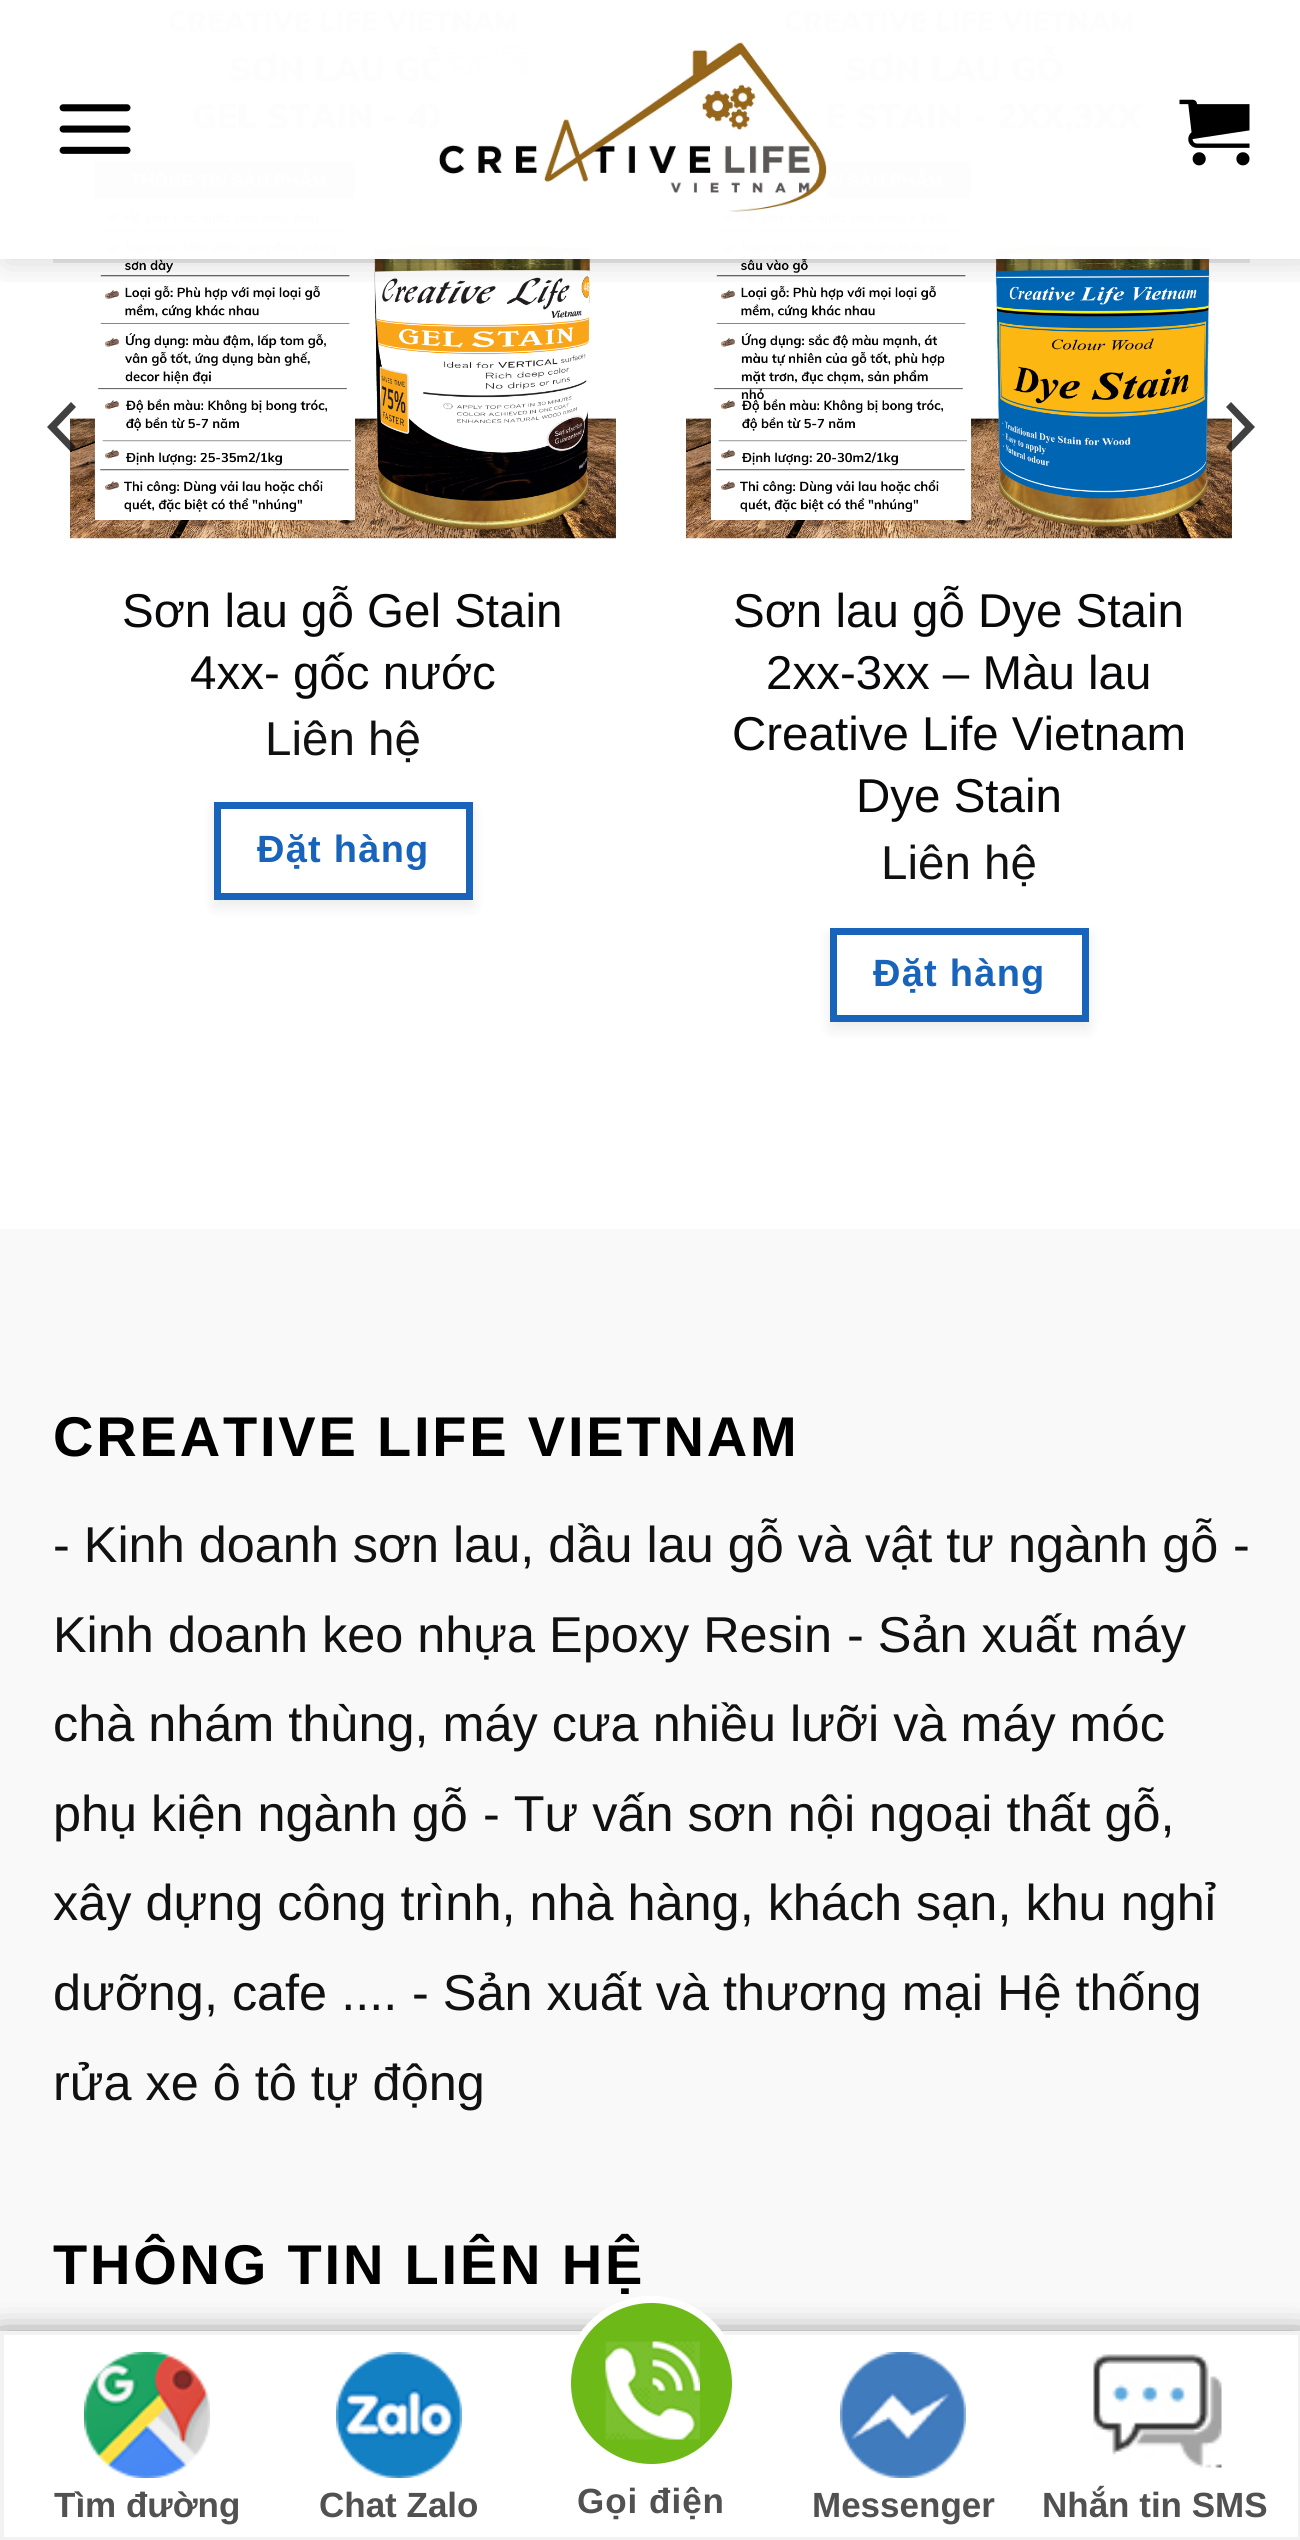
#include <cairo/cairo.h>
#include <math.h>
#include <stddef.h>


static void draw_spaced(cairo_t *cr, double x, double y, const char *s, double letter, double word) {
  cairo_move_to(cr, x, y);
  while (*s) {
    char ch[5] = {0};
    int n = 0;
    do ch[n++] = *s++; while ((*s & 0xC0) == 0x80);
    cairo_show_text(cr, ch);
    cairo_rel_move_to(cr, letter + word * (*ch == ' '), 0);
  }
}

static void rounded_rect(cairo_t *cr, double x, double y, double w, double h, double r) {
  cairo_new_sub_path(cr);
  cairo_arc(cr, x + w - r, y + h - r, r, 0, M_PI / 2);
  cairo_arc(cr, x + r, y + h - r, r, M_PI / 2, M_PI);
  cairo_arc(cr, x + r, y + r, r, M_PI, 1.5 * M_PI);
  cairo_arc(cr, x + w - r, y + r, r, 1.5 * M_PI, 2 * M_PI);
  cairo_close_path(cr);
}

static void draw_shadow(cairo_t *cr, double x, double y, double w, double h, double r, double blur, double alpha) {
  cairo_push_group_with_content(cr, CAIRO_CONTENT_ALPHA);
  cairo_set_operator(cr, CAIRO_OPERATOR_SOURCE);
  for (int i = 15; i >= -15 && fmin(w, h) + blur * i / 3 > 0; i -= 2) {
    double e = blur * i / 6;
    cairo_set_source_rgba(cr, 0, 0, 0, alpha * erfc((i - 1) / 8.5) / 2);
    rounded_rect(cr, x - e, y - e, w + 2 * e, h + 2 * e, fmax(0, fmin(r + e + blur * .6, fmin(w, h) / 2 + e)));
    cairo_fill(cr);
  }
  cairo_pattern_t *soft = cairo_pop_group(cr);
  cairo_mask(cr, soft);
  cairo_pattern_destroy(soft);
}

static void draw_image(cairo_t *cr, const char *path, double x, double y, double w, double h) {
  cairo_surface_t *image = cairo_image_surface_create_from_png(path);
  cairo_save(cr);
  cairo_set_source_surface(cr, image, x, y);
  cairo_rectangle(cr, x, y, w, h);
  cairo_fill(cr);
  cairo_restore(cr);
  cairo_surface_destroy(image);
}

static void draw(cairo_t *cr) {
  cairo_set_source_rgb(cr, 1, 1, 1);
  cairo_paint(cr);
  draw_image(cr, "images/4.png", 70, 11, 546, 528);
  draw_image(cr, "images/5.png", 686, 11, 546, 528);
  cairo_save(cr);
  cairo_rectangle(cr, 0, 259, 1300, 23);
  cairo_clip(cr);
  cairo_set_source_rgb(cr, 0, 0, 0);
  draw_shadow(cr, 4, 4, 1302, 259, 0, 17.5, 0.15);
  cairo_restore(cr);
  cairo_set_source_rgba(cr, 1, 1, 1, 0.9);
  cairo_rectangle(cr, 94, 11, 1118, 248);
  cairo_fill(cr);
  cairo_rectangle(cr, 95, 11, 1117, 248);
  cairo_fill(cr);
  draw_image(cr, "images/1.png", 59, 104, 72, 50);
  draw_image(cr, "images/2.png", 439, 42, 388, 171);
  draw_image(cr, "images/3.png", 1179, 99, 71, 67);
  cairo_set_source_rgba(cr, 17 / 255.0, 17 / 255.0, 17 / 255.0, 0.1);
  cairo_rectangle(cr, 53, 259, 1197, 4);
  cairo_fill(cr);
  cairo_set_source_rgba(cr, 17 / 255.0, 17 / 255.0, 17 / 255.0, 0.8);
  cairo_new_path(cr);
  cairo_move_to(cr, 47, 427);
  cairo_line_to(cr, 71, 452);
  cairo_line_to(cr, 76, 447);
  cairo_line_to(cr, 57, 427);
  cairo_line_to(cr, 76, 407);
  cairo_line_to(cr, 71, 402);
  cairo_close_path(cr);
  cairo_fill(cr);
  cairo_new_path(cr);
  cairo_move_to(cr, 1255, 427);
  cairo_line_to(cr, 1231, 402);
  cairo_line_to(cr, 1226, 407);
  cairo_line_to(cr, 1245, 427);
  cairo_line_to(cr, 1226, 447);
  cairo_line_to(cr, 1231, 452);
  cairo_close_path(cr);
  cairo_fill(cr);
  cairo_save(cr);
  cairo_set_fill_rule(cr, CAIRO_FILL_RULE_EVEN_ODD);
  cairo_new_path(cr);
  cairo_move_to(cr, 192, 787);
  cairo_line_to(cr, 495, 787);
  cairo_line_to(cr, 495, 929);
  cairo_line_to(cr, 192, 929);
  cairo_close_path(cr);
  cairo_move_to(cr, 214, 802);
  cairo_line_to(cr, 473, 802);
  cairo_line_to(cr, 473, 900);
  cairo_line_to(cr, 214, 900);
  cairo_close_path(cr);
  cairo_clip(cr);
  cairo_set_source_rgb(cr, 0, 0, 0);
  draw_shadow(cr, 214, 809, 259, 98, 0, 7, 0.08);
  cairo_restore(cr);
  cairo_rectangle(cr, 217.5, 805.5, 252, 91);
  cairo_set_source_rgb(cr, 25 / 255.0, 100 / 255.0, 187 / 255.0);
  cairo_set_line_width(cr, 7);
  cairo_stroke(cr);
  cairo_save(cr);
  cairo_set_fill_rule(cr, CAIRO_FILL_RULE_EVEN_ODD);
  cairo_new_path(cr);
  cairo_move_to(cr, 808, 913);
  cairo_line_to(cr, 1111, 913);
  cairo_line_to(cr, 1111, 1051);
  cairo_line_to(cr, 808, 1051);
  cairo_close_path(cr);
  cairo_move_to(cr, 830, 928);
  cairo_line_to(cr, 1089, 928);
  cairo_line_to(cr, 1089, 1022);
  cairo_line_to(cr, 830, 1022);
  cairo_close_path(cr);
  cairo_clip(cr);
  cairo_set_source_rgb(cr, 0, 0, 0);
  draw_shadow(cr, 830, 935, 259, 94, 0, 7, 0.08);
  cairo_restore(cr);
  cairo_rectangle(cr, 833.5, 931.5, 252, 87);
  cairo_stroke(cr);
  cairo_set_source_rgb(cr, 249 / 255.0, 249 / 255.0, 249 / 255.0);
  cairo_rectangle(cr, 0, 1229, 1300, 1102);
  cairo_fill(cr);
  cairo_set_source_rgb(cr, 0, 0, 0);
  draw_shadow(cr, 0, 2345, 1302, 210, 0, 17.5, 1);
  cairo_set_source_rgb(cr, 1, 1, 1);
  cairo_rectangle(cr, 2, 2333, 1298, 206);
  cairo_fill_preserve(cr);
  cairo_set_source_rgb(cr, 242 / 255.0, 242 / 255.0, 242 / 255.0);
  cairo_set_line_width(cr, 4);
  cairo_stroke(cr);
  draw_image(cr, "images/6.png", 84, 2352, 126, 126);
  draw_image(cr, "images/7.png", 336, 2352, 126, 126);
  cairo_set_source_rgb(cr, 108 / 255.0, 185 / 255.0, 23 / 255.0);
  cairo_arc(cr, 651.5, 2383.5, 84, 0, 2 * M_PI);
  cairo_fill_preserve(cr);
  cairo_set_source_rgb(cr, 1, 1, 1);
  cairo_set_line_width(cr, 7);
  cairo_stroke(cr);
  draw_image(cr, "images/8.png", 605, 2341, 95, 99);
  draw_image(cr, "images/9.png", 840, 2352, 126, 126);
  draw_image(cr, "images/10.png", 1093, 2354, 129, 114);
  cairo_select_font_face(cr, "Liberation Sans", CAIRO_FONT_SLANT_NORMAL, CAIRO_FONT_WEIGHT_NORMAL);
  cairo_set_font_size(cr, 47.5);
  cairo_set_source_rgb(cr, 9 / 255.0, 9 / 255.0, 11 / 255.0);
  cairo_move_to(cr, 122, 627);
  cairo_show_text(cr, "Sơn lau gỗ Gel Stain");
  cairo_move_to(cr, 190, 689);
  cairo_show_text(cr, "4xx- gốc nước");
  cairo_set_source_rgb(cr, 17 / 255.0, 17 / 255.0, 17 / 255.0);
  cairo_move_to(cr, 265, 755);
  cairo_show_text(cr, "Liên hệ");
  cairo_select_font_face(cr, "Liberation Sans", CAIRO_FONT_SLANT_NORMAL, CAIRO_FONT_WEIGHT_BOLD);
  cairo_set_font_size(cr, 38);
  cairo_set_source_rgb(cr, 25 / 255.0, 100 / 255.0, 187 / 255.0);
  draw_spaced(cr, 257, 862, "Đặt hàng", 1.25, 0);
  cairo_select_font_face(cr, "Liberation Sans", CAIRO_FONT_SLANT_NORMAL, CAIRO_FONT_WEIGHT_NORMAL);
  cairo_set_font_size(cr, 47.5);
  cairo_set_source_rgb(cr, 9 / 255.0, 9 / 255.0, 11 / 255.0);
  cairo_move_to(cr, 733, 627);
  cairo_show_text(cr, "Sơn lau gỗ Dye Stain");
  cairo_move_to(cr, 766, 689);
  cairo_show_text(cr, "2xx-3xx – Màu lau");
  cairo_move_to(cr, 732, 750);
  cairo_show_text(cr, "Creative Life Vietnam");
  cairo_move_to(cr, 856, 812);
  cairo_show_text(cr, "Dye Stain");
  cairo_set_source_rgb(cr, 17 / 255.0, 17 / 255.0, 17 / 255.0);
  cairo_move_to(cr, 881, 879);
  cairo_show_text(cr, "Liên hệ");
  cairo_select_font_face(cr, "Liberation Sans", CAIRO_FONT_SLANT_NORMAL, CAIRO_FONT_WEIGHT_BOLD);
  cairo_set_font_size(cr, 38);
  cairo_set_source_rgb(cr, 25 / 255.0, 100 / 255.0, 187 / 255.0);
  draw_spaced(cr, 873, 986, "Đặt hàng", 1.25, 0);
  cairo_set_font_size(cr, 56);
  cairo_set_source_rgb(cr, 0, 0, 0);
  draw_spaced(cr, 53, 1456, "CREATIVE LIFE VIETNAM", 2.8, 0);
  cairo_select_font_face(cr, "Liberation Sans", CAIRO_FONT_SLANT_NORMAL, CAIRO_FONT_WEIGHT_NORMAL);
  cairo_set_font_size(cr, 50.4);
  cairo_set_source_rgb(cr, 17 / 255.0, 17 / 255.0, 17 / 255.0);
  cairo_move_to(cr, 53, 1562);
  cairo_show_text(cr, "- Kinh doanh sơn lau, dầu lau gỗ và vật tư ngành gỗ");
  cairo_move_to(cr, 1233, 1562);
  cairo_show_text(cr, "-");
  cairo_move_to(cr, 53, 1652);
  cairo_show_text(cr, "Kinh doanh keo nhựa Epoxy Resin");
  cairo_move_to(cr, 847, 1652);
  cairo_show_text(cr, "- Sản xuất máy");
  cairo_move_to(cr, 53, 1741);
  cairo_show_text(cr, "chà nhám thùng, máy cưa nhiều lưỡi và máy móc");
  cairo_move_to(cr, 53, 1831);
  cairo_show_text(cr, "phụ kiện ngành gỗ");
  cairo_move_to(cr, 483, 1831);
  cairo_show_text(cr, "- Tư vấn sơn nội ngoại thất gỗ,");
  cairo_move_to(cr, 53, 1920);
  cairo_show_text(cr, "xây dựng công trình, nhà hàng, khách sạn, khu nghỉ");
  cairo_move_to(cr, 53, 2010);
  cairo_show_text(cr, "dưỡng, cafe ....");
  cairo_move_to(cr, 412, 2010);
  cairo_show_text(cr, "- Sản xuất và thương mại Hệ thống");
  cairo_move_to(cr, 53, 2100);
  cairo_show_text(cr, "rửa xe ô tô tự động");
  cairo_select_font_face(cr, "Liberation Sans", CAIRO_FONT_SLANT_NORMAL, CAIRO_FONT_WEIGHT_BOLD);
  cairo_set_font_size(cr, 56);
  cairo_set_source_rgb(cr, 0, 0, 0);
  draw_spaced(cr, 53, 2284, "THÔNG TIN LIÊN HỆ", 2.8, 0);
  cairo_set_font_size(cr, 35);
  cairo_set_source_rgb(cr, 81 / 255.0, 81 / 255.0, 81 / 255.0);
  cairo_move_to(cr, 54, 2517);
  cairo_show_text(cr, "Tìm đường");
  cairo_move_to(cr, 319, 2517);
  cairo_show_text(cr, "Chat Zalo");
  draw_spaced(cr, 577, 2513, "Gọi điện", 1, 0);
  cairo_move_to(cr, 812, 2517);
  cairo_show_text(cr, "Messenger");
  cairo_move_to(cr, 1042, 2517);
  cairo_show_text(cr, "Nhắn tin SMS");
}

int main(void) {
  cairo_surface_t *surface = cairo_image_surface_create(CAIRO_FORMAT_RGB24, 1300, 2540);
  cairo_t *cr = cairo_create(surface);
  cairo_font_options_t *options = cairo_font_options_create();
  cairo_font_options_set_hint_metrics(options, CAIRO_HINT_METRICS_OFF);
  cairo_font_options_set_hint_style(options, CAIRO_HINT_STYLE_NONE);
  cairo_set_font_options(cr, options);
  cairo_set_miter_limit(cr, 4);
  draw(cr);
  cairo_surface_write_to_png(surface, "out.png");
  cairo_font_options_destroy(options);
  cairo_destroy(cr);
  cairo_surface_destroy(surface);
  return 0;
}
